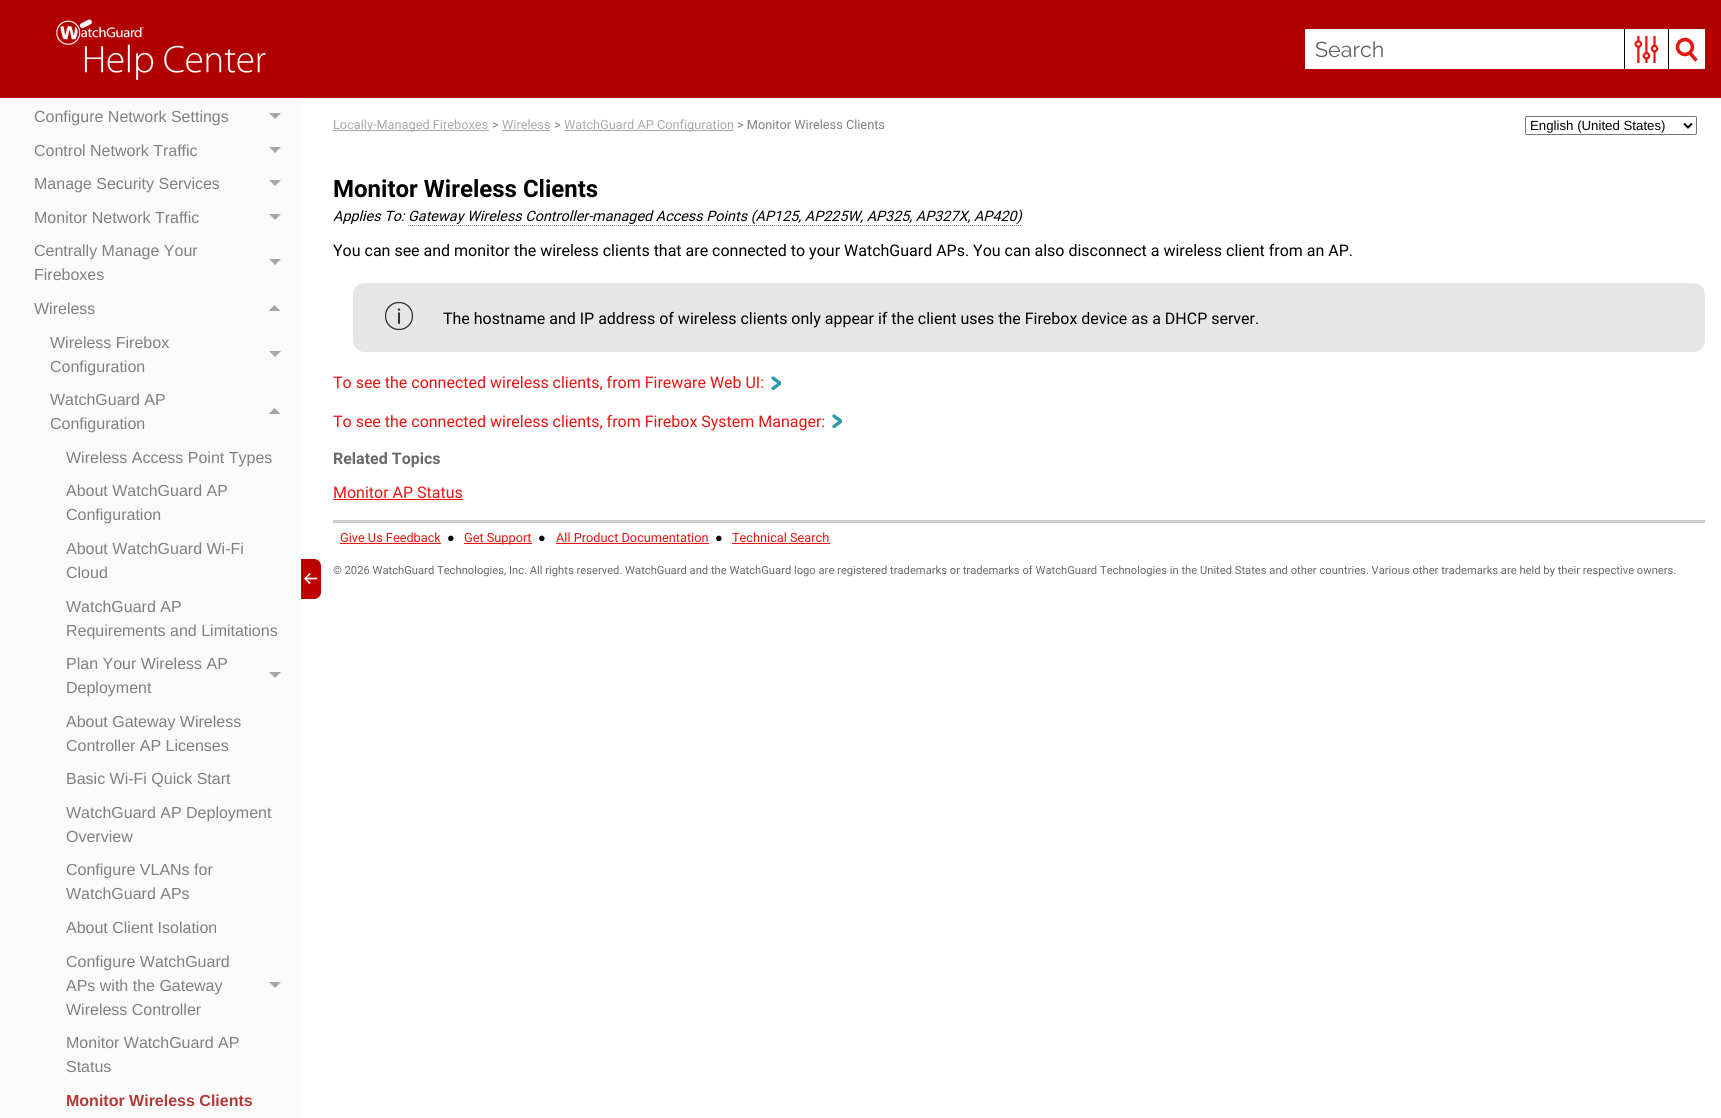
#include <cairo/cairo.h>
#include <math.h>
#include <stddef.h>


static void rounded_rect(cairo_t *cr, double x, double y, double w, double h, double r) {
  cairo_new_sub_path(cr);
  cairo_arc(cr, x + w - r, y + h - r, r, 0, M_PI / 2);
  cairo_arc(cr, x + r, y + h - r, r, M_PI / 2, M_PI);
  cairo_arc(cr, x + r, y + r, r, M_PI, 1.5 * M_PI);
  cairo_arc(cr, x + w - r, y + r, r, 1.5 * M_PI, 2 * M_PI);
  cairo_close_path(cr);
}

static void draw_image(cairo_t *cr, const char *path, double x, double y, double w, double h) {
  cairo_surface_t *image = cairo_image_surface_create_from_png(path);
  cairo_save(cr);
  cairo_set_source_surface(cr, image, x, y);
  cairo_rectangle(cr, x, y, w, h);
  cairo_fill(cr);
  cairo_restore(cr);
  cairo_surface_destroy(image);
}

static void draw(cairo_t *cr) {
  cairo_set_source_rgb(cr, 1, 1, 1);
  cairo_paint(cr);
  cairo_set_source_rgb(cr, 177 / 255.0, 0, 0);
  cairo_rectangle(cr, 0, 0, 1721, 98);
  cairo_fill(cr);
  draw_image(cr, "images/1.png", 56, 19, 210, 61);
  cairo_set_source_rgb(cr, 1, 1, 1);
  cairo_new_path(cr);
  cairo_move_to(cr, 1306, 29);
  cairo_line_to(cr, 1705, 29);
  cairo_line_to(cr, 1705, 69);
  cairo_line_to(cr, 1305, 69);
  cairo_line_to(cr, 1305, 30);
  cairo_curve_to(cr, 1305, 29.5, 1305.5, 29, 1306, 29);
  cairo_close_path(cr);
  cairo_fill(cr);
  draw_image(cr, "images/2.png", 1634, 36, 25, 27);
  cairo_set_source_rgb(cr, 0, 0, 0);
  cairo_rectangle(cr, 1668, 29, 1, 40);
  cairo_fill(cr);
  cairo_rectangle(cr, 1624, 29, 1, 40);
  cairo_fill(cr);
  draw_image(cr, "images/3.png", 1675, 37, 23, 25);
  cairo_set_source_rgb(cr, 250 / 255.0, 250 / 255.0, 250 / 255.0);
  cairo_rectangle(cr, 0, 98, 301, 1020);
  cairo_fill(cr);
  cairo_set_source_rgb(cr, 161 / 255.0, 168 / 255.0, 172 / 255.0);
  cairo_new_path(cr);
  cairo_move_to(cr, 269, 113);
  cairo_line_to(cr, 281, 113);
  cairo_line_to(cr, 275, 119);
  cairo_close_path(cr);
  cairo_fill(cr);
  cairo_new_path(cr);
  cairo_move_to(cr, 269, 147);
  cairo_line_to(cr, 281, 147);
  cairo_line_to(cr, 275, 153);
  cairo_close_path(cr);
  cairo_fill(cr);
  cairo_new_path(cr);
  cairo_move_to(cr, 269, 180);
  cairo_line_to(cr, 281, 180);
  cairo_line_to(cr, 275, 186);
  cairo_close_path(cr);
  cairo_fill(cr);
  cairo_new_path(cr);
  cairo_move_to(cr, 269, 214);
  cairo_line_to(cr, 281, 214);
  cairo_line_to(cr, 275, 220);
  cairo_close_path(cr);
  cairo_fill(cr);
  cairo_new_path(cr);
  cairo_move_to(cr, 269, 259);
  cairo_line_to(cr, 281, 259);
  cairo_line_to(cr, 275, 265);
  cairo_close_path(cr);
  cairo_fill(cr);
  cairo_new_path(cr);
  cairo_move_to(cr, 280.5, 311);
  cairo_line_to(cr, 268.5, 311);
  cairo_line_to(cr, 274.5, 305);
  cairo_close_path(cr);
  cairo_fill(cr);
  cairo_new_path(cr);
  cairo_move_to(cr, 269, 351);
  cairo_line_to(cr, 281, 351);
  cairo_line_to(cr, 275, 357);
  cairo_close_path(cr);
  cairo_fill(cr);
  cairo_new_path(cr);
  cairo_move_to(cr, 280.5, 414);
  cairo_line_to(cr, 268.5, 414);
  cairo_line_to(cr, 274.5, 408);
  cairo_close_path(cr);
  cairo_fill(cr);
  cairo_new_path(cr);
  cairo_move_to(cr, 269, 672);
  cairo_line_to(cr, 281, 672);
  cairo_line_to(cr, 275, 678);
  cairo_close_path(cr);
  cairo_fill(cr);
  cairo_new_path(cr);
  cairo_move_to(cr, 269, 982);
  cairo_line_to(cr, 281, 982);
  cairo_line_to(cr, 275, 988);
  cairo_close_path(cr);
  cairo_fill(cr);
  cairo_set_source_rgb(cr, 169 / 255.0, 169 / 255.0, 169 / 255.0);
  cairo_rectangle(cr, 333, 130, 156, 1);
  cairo_fill(cr);
  cairo_rectangle(cr, 502, 130, 48, 1);
  cairo_fill(cr);
  cairo_rectangle(cr, 564, 130, 170, 1);
  cairo_fill(cr);
  rounded_rect(cr, 1525.5, 116.5, 171, 18, 1.5);
  cairo_set_source_rgb(cr, 118 / 255.0, 118 / 255.0, 118 / 255.0);
  cairo_set_line_width(cr, 1);
  cairo_stroke(cr);
  cairo_new_path(cr);
  cairo_move_to(cr, 1684, 123.5);
  cairo_line_to(cr, 1688, 127.5);
  cairo_line_to(cr, 1692, 123.5);
  cairo_set_source_rgb(cr, 0, 0, 0);
  cairo_set_line_width(cr, 2);
  cairo_stroke(cr);
  cairo_new_path(cr);
  cairo_move_to(cr, 408, 225.5);
  cairo_line_to(cr, 1021, 225.5);
  cairo_set_source_rgb(cr, 128 / 255.0, 128 / 255.0, 128 / 255.0);
  cairo_set_line_width(cr, 1);
  cairo_set_dash(cr, (double[]){1, 1}, 2, 0);
  cairo_stroke(cr);
  cairo_set_source_rgb(cr, 230 / 255.0, 230 / 255.0, 230 / 255.0);
  rounded_rect(cr, 353, 283, 1352, 69, 12);
  cairo_fill(cr);
  draw_image(cr, "images/4.png", 385, 302, 29, 28);
  rounded_rect(cr, 358, 288, 1342, 59, 7);
  cairo_set_line_width(cr, 10);
  cairo_set_dash(cr, NULL, 0, 0);
  cairo_stroke(cr);
  draw_image(cr, "images/5.png", 771, 376, 10, 15);
  draw_image(cr, "images/5.png", 832, 414, 10, 15);
  cairo_set_source_rgb(cr, 232 / 255.0, 20 / 255.0, 16 / 255.0);
  cairo_rectangle(cr, 333, 499, 130, 1);
  cairo_fill(cr);
  cairo_set_source_rgb(cr, 204 / 255.0, 204 / 255.0, 204 / 255.0);
  cairo_rectangle(cr, 333, 520, 1372, 3);
  cairo_fill(cr);
  cairo_set_source_rgb(cr, 232 / 255.0, 20 / 255.0, 16 / 255.0);
  cairo_rectangle(cr, 340, 543, 101, 1);
  cairo_fill(cr);
  cairo_rectangle(cr, 464, 543, 68, 1);
  cairo_fill(cr);
  cairo_rectangle(cr, 556, 543, 153, 1);
  cairo_fill(cr);
  cairo_rectangle(cr, 732, 543, 98, 1);
  cairo_fill(cr);
  cairo_set_source_rgb(cr, 192 / 255.0, 0, 0);
  cairo_new_path(cr);
  cairo_move_to(cr, 301, 559);
  cairo_line_to(cr, 314, 559);
  cairo_curve_to(cr, 318, 559, 321, 562, 321, 566);
  cairo_line_to(cr, 321, 592);
  cairo_curve_to(cr, 321, 596, 318, 599, 314, 599);
  cairo_line_to(cr, 301, 599);
  cairo_close_path(cr);
  cairo_fill(cr);
  draw_image(cr, "images/6.png", 304, 573, 14, 11);
  cairo_select_font_face(cr, "Raleway", CAIRO_FONT_SLANT_NORMAL, CAIRO_FONT_WEIGHT_NORMAL);
  cairo_set_font_size(cr, 21.5);
  cairo_set_source_rgb(cr, 95 / 255.0, 95 / 255.0, 95 / 255.0);
  cairo_move_to(cr, 1315, 57);
  cairo_show_text(cr, "Search");
  cairo_select_font_face(cr, "Liberation Sans", CAIRO_FONT_SLANT_NORMAL, CAIRO_FONT_WEIGHT_NORMAL);
  cairo_set_font_size(cr, 16);
  cairo_set_source_rgb(cr, 128 / 255.0, 128 / 255.0, 128 / 255.0);
  cairo_move_to(cr, 34, 122);
  cairo_show_text(cr, "Configure Network Settings");
  cairo_move_to(cr, 34, 156);
  cairo_show_text(cr, "Control Network Traffic");
  cairo_move_to(cr, 34, 189);
  cairo_show_text(cr, "Manage Security Services");
  cairo_move_to(cr, 34, 223);
  cairo_show_text(cr, "Monitor Network Traffic");
  cairo_move_to(cr, 34, 256);
  cairo_show_text(cr, "Centrally Manage Your");
  cairo_move_to(cr, 34, 280);
  cairo_show_text(cr, "Fireboxes");
  cairo_move_to(cr, 34, 314);
  cairo_show_text(cr, "Wireless");
  cairo_move_to(cr, 50, 348);
  cairo_show_text(cr, "Wireless Firebox");
  cairo_move_to(cr, 50, 372);
  cairo_show_text(cr, "Configuration");
  cairo_move_to(cr, 50, 405);
  cairo_show_text(cr, "WatchGuard AP");
  cairo_move_to(cr, 50, 429);
  cairo_show_text(cr, "Configuration");
  cairo_move_to(cr, 66, 463);
  cairo_show_text(cr, "Wireless Access Point Types");
  cairo_move_to(cr, 66, 496);
  cairo_show_text(cr, "About WatchGuard AP");
  cairo_move_to(cr, 66, 520);
  cairo_show_text(cr, "Configuration");
  cairo_move_to(cr, 66, 554);
  cairo_show_text(cr, "About WatchGuard Wi-Fi");
  cairo_move_to(cr, 66, 578);
  cairo_show_text(cr, "Cloud");
  cairo_move_to(cr, 66, 612);
  cairo_show_text(cr, "WatchGuard AP");
  cairo_move_to(cr, 66, 636);
  cairo_show_text(cr, "Requirements and Limitations");
  cairo_move_to(cr, 66, 669);
  cairo_show_text(cr, "Plan Your Wireless AP");
  cairo_move_to(cr, 66, 693);
  cairo_show_text(cr, "Deployment");
  cairo_move_to(cr, 66, 727);
  cairo_show_text(cr, "About Gateway Wireless");
  cairo_move_to(cr, 66, 751);
  cairo_show_text(cr, "Controller AP Licenses");
  cairo_move_to(cr, 66, 784);
  cairo_show_text(cr, "Basic Wi-Fi Quick Start");
  cairo_move_to(cr, 66, 818);
  cairo_show_text(cr, "WatchGuard AP Deployment");
  cairo_move_to(cr, 66, 842);
  cairo_show_text(cr, "Overview");
  cairo_move_to(cr, 66, 875);
  cairo_show_text(cr, "Configure VLANs for");
  cairo_move_to(cr, 66, 899);
  cairo_show_text(cr, "WatchGuard APs");
  cairo_move_to(cr, 66, 933);
  cairo_show_text(cr, "About Client Isolation");
  cairo_move_to(cr, 66, 967);
  cairo_show_text(cr, "Configure WatchGuard");
  cairo_move_to(cr, 66, 991);
  cairo_show_text(cr, "APs with the Gateway");
  cairo_move_to(cr, 66, 1015);
  cairo_show_text(cr, "Wireless Controller");
  cairo_move_to(cr, 66, 1048);
  cairo_show_text(cr, "Monitor WatchGuard AP");
  cairo_move_to(cr, 66, 1072);
  cairo_show_text(cr, "Status");
  cairo_select_font_face(cr, "Liberation Sans", CAIRO_FONT_SLANT_NORMAL, CAIRO_FONT_WEIGHT_BOLD);
  cairo_set_source_rgb(cr, 179 / 255.0, 57 / 255.0, 57 / 255.0);
  cairo_move_to(cr, 66, 1106);
  cairo_show_text(cr, "Monitor Wireless Clients");
  cairo_select_font_face(cr, "Roboto", CAIRO_FONT_SLANT_NORMAL, CAIRO_FONT_WEIGHT_NORMAL);
  cairo_set_font_size(cr, 12.75);
  cairo_set_source_rgb(cr, 169 / 255.0, 169 / 255.0, 169 / 255.0);
  cairo_move_to(cr, 333, 129);
  cairo_show_text(cr, "Locally-Managed Fireboxes");
  cairo_set_source_rgb(cr, 128 / 255.0, 128 / 255.0, 128 / 255.0);
  cairo_move_to(cr, 492, 129);
  cairo_show_text(cr, ">");
  cairo_set_source_rgb(cr, 169 / 255.0, 169 / 255.0, 169 / 255.0);
  cairo_move_to(cr, 502, 129);
  cairo_show_text(cr, "Wireless");
  cairo_set_source_rgb(cr, 128 / 255.0, 128 / 255.0, 128 / 255.0);
  cairo_move_to(cr, 554, 129);
  cairo_show_text(cr, ">");
  cairo_set_source_rgb(cr, 169 / 255.0, 169 / 255.0, 169 / 255.0);
  cairo_move_to(cr, 564, 129);
  cairo_show_text(cr, "WatchGuard AP Configuration");
  cairo_set_source_rgb(cr, 128 / 255.0, 128 / 255.0, 128 / 255.0);
  cairo_move_to(cr, 737, 129);
  cairo_show_text(cr, "> Monitor Wireless Clients");
  cairo_select_font_face(cr, "Liberation Sans", CAIRO_FONT_SLANT_NORMAL, CAIRO_FONT_WEIGHT_NORMAL);
  cairo_set_font_size(cr, 13.25);
  cairo_set_source_rgb(cr, 0, 0, 0);
  cairo_move_to(cr, 1530, 130);
  cairo_show_text(cr, "English (United States)");
  cairo_select_font_face(cr, "Roboto", CAIRO_FONT_SLANT_NORMAL, CAIRO_FONT_WEIGHT_BOLD);
  cairo_set_font_size(cr, 24);
  cairo_move_to(cr, 333, 197);
  cairo_show_text(cr, "Monitor Wireless Clients");
  cairo_select_font_face(cr, "Roboto", CAIRO_FONT_SLANT_ITALIC, CAIRO_FONT_WEIGHT_NORMAL);
  cairo_set_font_size(cr, 14.4);
  cairo_move_to(cr, 333, 221);
  cairo_show_text(cr, "Applies To: Gateway Wireless Controller-managed Access Points (AP125, AP225W, AP325, AP327X, AP420)");
  cairo_select_font_face(cr, "Roboto", CAIRO_FONT_SLANT_NORMAL, CAIRO_FONT_WEIGHT_NORMAL);
  cairo_set_font_size(cr, 16);
  cairo_move_to(cr, 333, 256);
  cairo_show_text(cr, "You can see and monitor the wireless clients that are connected to your WatchGuard APs. You can also disconnect a wireless client from an AP.");
  cairo_move_to(cr, 443, 324);
  cairo_show_text(cr, "The hostname and IP address of wireless clients only appear if the client uses the Firebox device as a DHCP server.");
  cairo_set_source_rgb(cr, 232 / 255.0, 20 / 255.0, 16 / 255.0);
  cairo_move_to(cr, 333, 388);
  cairo_show_text(cr, "To see the connected wireless clients, from Fireware Web UI:");
  cairo_move_to(cr, 333, 427);
  cairo_show_text(cr, "To see the connected wireless clients, from Firebox System Manager:");
  cairo_select_font_face(cr, "Roboto", CAIRO_FONT_SLANT_NORMAL, CAIRO_FONT_WEIGHT_BOLD);
  cairo_set_source_rgb(cr, 105 / 255.0, 105 / 255.0, 105 / 255.0);
  cairo_move_to(cr, 333, 464);
  cairo_show_text(cr, "Related Topics");
  cairo_select_font_face(cr, "Roboto", CAIRO_FONT_SLANT_NORMAL, CAIRO_FONT_WEIGHT_NORMAL);
  cairo_set_source_rgb(cr, 232 / 255.0, 20 / 255.0, 16 / 255.0);
  cairo_move_to(cr, 333, 498);
  cairo_show_text(cr, "Monitor AP Status");
  cairo_set_font_size(cr, 12.75);
  cairo_move_to(cr, 340, 542);
  cairo_show_text(cr, "Give Us Feedback");
  cairo_select_font_face(cr, "Liberation Serif", CAIRO_FONT_SLANT_NORMAL, CAIRO_FONT_WEIGHT_NORMAL);
  cairo_set_source_rgb(cr, 0, 0, 0);
  cairo_move_to(cr, 447, 542);
  cairo_show_text(cr, "●");
  cairo_select_font_face(cr, "Roboto", CAIRO_FONT_SLANT_NORMAL, CAIRO_FONT_WEIGHT_NORMAL);
  cairo_set_source_rgb(cr, 232 / 255.0, 20 / 255.0, 16 / 255.0);
  cairo_move_to(cr, 464, 542);
  cairo_show_text(cr, "Get Support");
  cairo_select_font_face(cr, "Liberation Serif", CAIRO_FONT_SLANT_NORMAL, CAIRO_FONT_WEIGHT_NORMAL);
  cairo_set_source_rgb(cr, 0, 0, 0);
  cairo_move_to(cr, 538, 542);
  cairo_show_text(cr, "●");
  cairo_select_font_face(cr, "Roboto", CAIRO_FONT_SLANT_NORMAL, CAIRO_FONT_WEIGHT_NORMAL);
  cairo_set_source_rgb(cr, 232 / 255.0, 20 / 255.0, 16 / 255.0);
  cairo_move_to(cr, 556, 542);
  cairo_show_text(cr, "All Product Documentation");
  cairo_select_font_face(cr, "Liberation Serif", CAIRO_FONT_SLANT_NORMAL, CAIRO_FONT_WEIGHT_NORMAL);
  cairo_set_source_rgb(cr, 0, 0, 0);
  cairo_move_to(cr, 715, 542);
  cairo_show_text(cr, "●");
  cairo_select_font_face(cr, "Roboto", CAIRO_FONT_SLANT_NORMAL, CAIRO_FONT_WEIGHT_NORMAL);
  cairo_set_source_rgb(cr, 232 / 255.0, 20 / 255.0, 16 / 255.0);
  cairo_move_to(cr, 732, 542);
  cairo_show_text(cr, "Technical Search");
  cairo_set_font_size(cr, 11.2);
  cairo_set_source_rgb(cr, 105 / 255.0, 105 / 255.0, 105 / 255.0);
  cairo_move_to(cr, 333, 574);
  cairo_show_text(cr, "© 2026 WatchGuard Technologies, Inc. All rights reserved. WatchGuard and the WatchGuard logo are registered trademarks or trademarks of WatchGuard Technologies in the United States and other countries. Various other trademarks are held by their respective owners.");
}

int main(void) {
  cairo_surface_t *surface = cairo_image_surface_create(CAIRO_FORMAT_RGB24, 1721, 1118);
  cairo_t *cr = cairo_create(surface);
  cairo_font_options_t *options = cairo_font_options_create();
  cairo_font_options_set_hint_metrics(options, CAIRO_HINT_METRICS_OFF);
  cairo_font_options_set_hint_style(options, CAIRO_HINT_STYLE_NONE);
  cairo_set_font_options(cr, options);
  cairo_set_miter_limit(cr, 4);
  draw(cr);
  cairo_surface_write_to_png(surface, "out.png");
  cairo_font_options_destroy(options);
  cairo_destroy(cr);
  cairo_surface_destroy(surface);
  return 0;
}
